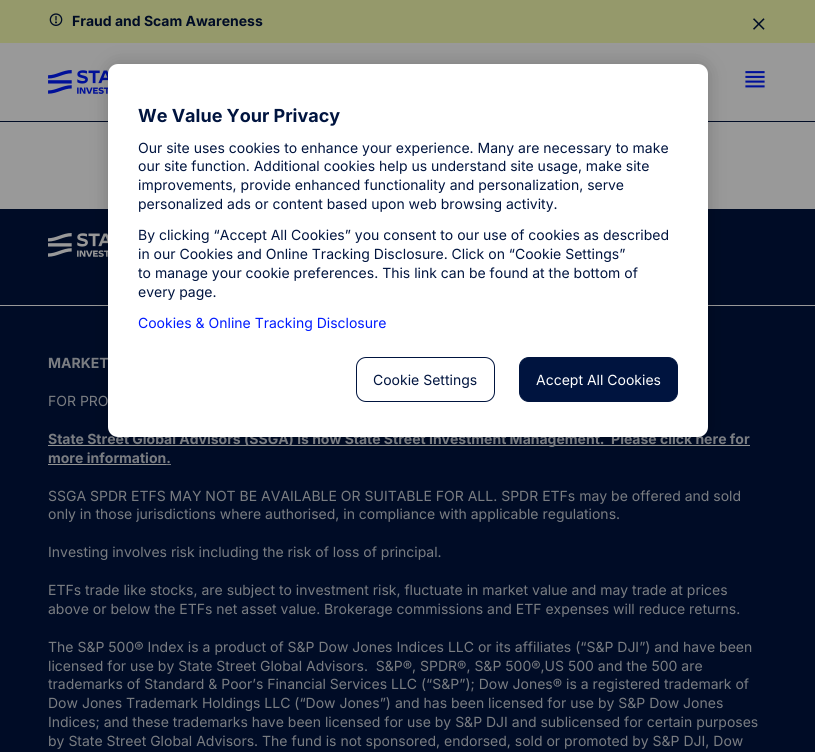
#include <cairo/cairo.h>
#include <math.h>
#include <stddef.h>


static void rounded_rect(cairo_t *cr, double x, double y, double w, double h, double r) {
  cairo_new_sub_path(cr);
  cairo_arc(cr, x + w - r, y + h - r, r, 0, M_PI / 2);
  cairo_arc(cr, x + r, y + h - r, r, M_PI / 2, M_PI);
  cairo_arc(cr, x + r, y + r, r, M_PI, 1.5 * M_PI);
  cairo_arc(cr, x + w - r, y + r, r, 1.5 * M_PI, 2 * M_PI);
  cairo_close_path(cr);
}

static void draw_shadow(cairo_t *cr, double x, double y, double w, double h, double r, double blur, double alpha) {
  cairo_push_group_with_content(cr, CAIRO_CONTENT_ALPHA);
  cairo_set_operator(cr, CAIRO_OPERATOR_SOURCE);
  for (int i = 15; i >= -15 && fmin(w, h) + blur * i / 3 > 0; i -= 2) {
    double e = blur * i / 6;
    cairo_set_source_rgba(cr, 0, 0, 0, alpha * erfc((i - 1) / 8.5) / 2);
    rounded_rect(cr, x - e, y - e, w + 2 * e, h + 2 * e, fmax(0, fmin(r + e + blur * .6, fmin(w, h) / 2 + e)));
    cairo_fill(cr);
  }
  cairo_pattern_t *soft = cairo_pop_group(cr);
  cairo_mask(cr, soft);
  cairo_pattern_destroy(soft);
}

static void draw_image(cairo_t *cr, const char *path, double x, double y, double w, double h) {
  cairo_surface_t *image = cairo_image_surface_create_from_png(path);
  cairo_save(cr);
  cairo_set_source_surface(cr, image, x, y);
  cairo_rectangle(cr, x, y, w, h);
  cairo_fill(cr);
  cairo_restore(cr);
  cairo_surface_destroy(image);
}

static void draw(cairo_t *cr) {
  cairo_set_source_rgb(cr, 153 / 255.0, 153 / 255.0, 153 / 255.0);
  cairo_paint(cr);
  cairo_set_source_rgb(cr, 0, 12 / 255.0, 38 / 255.0);
  cairo_rectangle(cr, 0, 121, 815, 1);
  cairo_fill(cr);
  cairo_set_source_rgb(cr, 149 / 255.0, 153 / 255.0, 107 / 255.0);
  cairo_rectangle(cr, 0, 0, 815, 43);
  cairo_fill(cr);
  draw_image(cr, "images/1.png", 49, 13, 14, 13);
  draw_image(cr, "images/2.png", 753, 18, 12, 12);
  draw_image(cr, "images/3.png", 48, 70, 61, 24);
  draw_image(cr, "images/4.png", 745, 71, 20, 17);
  cairo_set_source_rgb(cr, 0, 12 / 255.0, 38 / 255.0);
  cairo_rectangle(cr, 0, 209, 815, 543);
  cairo_fill(cr);
  cairo_set_source_rgb(cr, 153 / 255.0, 153 / 255.0, 153 / 255.0);
  cairo_rectangle(cr, 0, 305, 815, 1);
  cairo_fill(cr);
  draw_image(cr, "images/5.png", 48, 233, 60, 24);
  cairo_set_source_rgb(cr, 147 / 255.0, 148 / 255.0, 148 / 255.0);
  cairo_rectangle(cr, 48, 445, 702, 1);
  cairo_fill(cr);
  cairo_rectangle(cr, 48, 464, 118, 1);
  cairo_fill(cr);
  cairo_set_source_rgb(cr, 122 / 255.0, 125 / 255.0, 130 / 255.0);
  cairo_rectangle(cr, 166, 464, 5, 1);
  cairo_fill(cr);
  cairo_set_source_rgb(cr, 0, 0, 0);
  draw_shadow(cr, 108, 64, 600, 373, 10, 9, 0.2);
  cairo_select_font_face(cr, "Inter", CAIRO_FONT_SLANT_NORMAL, CAIRO_FONT_WEIGHT_BOLD);
  cairo_set_font_size(cr, 14);
  cairo_set_source_rgb(cr, 0, 12 / 255.0, 38 / 255.0);
  cairo_move_to(cr, 72, 26);
  cairo_show_text(cr, "Fraud and Scam Awareness");
  cairo_set_source_rgb(cr, 122 / 255.0, 125 / 255.0, 130 / 255.0);
  cairo_move_to(cr, 48, 368);
  cairo_show_text(cr, "MARKET");
  cairo_select_font_face(cr, "Inter", CAIRO_FONT_SLANT_NORMAL, CAIRO_FONT_WEIGHT_NORMAL);
  cairo_move_to(cr, 48, 406);
  cairo_show_text(cr, "FOR PRO");
  cairo_select_font_face(cr, "Inter", CAIRO_FONT_SLANT_NORMAL, CAIRO_FONT_WEIGHT_BOLD);
  cairo_move_to(cr, 48, 444);
  cairo_show_text(cr, "State Street Global Advisors (SSGA) is now State Street Investment Management.  Please click here for");
  cairo_move_to(cr, 48, 463);
  cairo_show_text(cr, "more information.");
  cairo_select_font_face(cr, "Inter", CAIRO_FONT_SLANT_NORMAL, CAIRO_FONT_WEIGHT_NORMAL);
  cairo_move_to(cr, 48, 501);
  cairo_show_text(cr, "SSGA SPDR ETFS MAY NOT BE AVAILABLE OR SUITABLE FOR ALL. SPDR ETFs may be offered and sold");
  cairo_move_to(cr, 48, 519);
  cairo_show_text(cr, "only in those jurisdictions where authorised, in compliance with applicable regulations.");
  cairo_move_to(cr, 48, 557);
  cairo_show_text(cr, "Investing involves risk including the risk of loss of principal.");
  cairo_move_to(cr, 48, 595);
  cairo_show_text(cr, "ETFs trade like stocks, are subject to investment risk, fluctuate in market value and may trade at prices");
  cairo_move_to(cr, 48, 614);
  cairo_show_text(cr, "above or below the ETFs net asset value. Brokerage commissions and ETF expenses will reduce returns.");
  cairo_move_to(cr, 48, 652);
  cairo_show_text(cr, "The S&P 500® Index is a product of S&P Dow Jones Indices LLC or its affiliates (“S&P DJI”) and have been");
  cairo_move_to(cr, 48, 671);
  cairo_show_text(cr, "licensed for use by State Street Global Advisors.  S&P®, SPDR®, S&P 500®,US 500 and the 500 are");
  cairo_move_to(cr, 48, 689);
  cairo_show_text(cr, "trademarks of Standard & Poor’s Financial Services LLC (“S&P”); Dow Jones® is a registered trademark of");
  cairo_move_to(cr, 48, 708);
  cairo_show_text(cr, "Dow Jones Trademark Holdings LLC (“Dow Jones”) and has been licensed for use by S&P Dow Jones");
  cairo_move_to(cr, 48, 727);
  cairo_show_text(cr, "Indices; and these trademarks have been licensed for use by S&P DJI and sublicensed for certain purposes");
  cairo_move_to(cr, 48, 746);
  cairo_show_text(cr, "by State Street Global Advisors. The fund is not sponsored, endorsed, sold or promoted by S&P DJI, Dow");
  cairo_set_source_rgb(cr, 1, 1, 1);
  rounded_rect(cr, 108, 64, 600, 373, 10);
  cairo_fill(cr);
  cairo_select_font_face(cr, "Inter", CAIRO_FONT_SLANT_NORMAL, CAIRO_FONT_WEIGHT_BOLD);
  cairo_set_font_size(cr, 18);
  cairo_set_source_rgb(cr, 0, 20 / 255.0, 63 / 255.0);
  cairo_move_to(cr, 138, 122);
  cairo_show_text(cr, "We Value Your Privacy");
  cairo_select_font_face(cr, "Inter", CAIRO_FONT_SLANT_NORMAL, CAIRO_FONT_WEIGHT_NORMAL);
  cairo_set_font_size(cr, 14);
  cairo_move_to(cr, 138, 153);
  cairo_show_text(cr, "Our site uses cookies to enhance your experience. Many are necessary to make");
  cairo_move_to(cr, 138, 171);
  cairo_show_text(cr, "our site function. Additional cookies help us understand site usage, make site");
  cairo_move_to(cr, 138, 190);
  cairo_show_text(cr, "improvements, provide enhanced functionality and personalization, serve");
  cairo_move_to(cr, 138, 209);
  cairo_show_text(cr, "personalized ads or content based upon web browsing activity.");
  cairo_move_to(cr, 138, 240);
  cairo_show_text(cr, "By clicking “Accept All Cookies” you consent to our use of cookies as described");
  cairo_move_to(cr, 138, 259);
  cairo_show_text(cr, "in our Cookies and Online Tracking Disclosure. Click on “Cookie Settings”");
  cairo_move_to(cr, 138, 278);
  cairo_show_text(cr, "to manage your cookie preferences. This link can be found at the bottom of");
  cairo_move_to(cr, 138, 297);
  cairo_show_text(cr, "every page.");
  cairo_set_source_rgb(cr, 0, 26 / 255.0, 1);
  cairo_move_to(cr, 138, 328);
  cairo_show_text(cr, "Cookies & Online Tracking Disclosure");
  rounded_rect(cr, 356.5, 357.5, 138, 44, 9.5);
  cairo_set_source_rgb(cr, 0, 20 / 255.0, 63 / 255.0);
  cairo_set_line_width(cr, 1);
  cairo_stroke(cr);
  cairo_move_to(cr, 373, 385);
  cairo_show_text(cr, "Cookie Settings");
  rounded_rect(cr, 519.5, 357.5, 158, 44, 9.5);
  cairo_fill_preserve(cr);
  cairo_stroke(cr);
  cairo_set_source_rgb(cr, 1, 1, 1);
  cairo_move_to(cr, 536, 385);
  cairo_show_text(cr, "Accept All Cookies");
}

int main(void) {
  cairo_surface_t *surface = cairo_image_surface_create(CAIRO_FORMAT_RGB24, 815, 752);
  cairo_t *cr = cairo_create(surface);
  cairo_font_options_t *options = cairo_font_options_create();
  cairo_font_options_set_hint_metrics(options, CAIRO_HINT_METRICS_OFF);
  cairo_font_options_set_hint_style(options, CAIRO_HINT_STYLE_NONE);
  cairo_set_font_options(cr, options);
  cairo_set_miter_limit(cr, 4);
  draw(cr);
  cairo_surface_write_to_png(surface, "out.png");
  cairo_font_options_destroy(options);
  cairo_destroy(cr);
  cairo_surface_destroy(surface);
  return 0;
}
